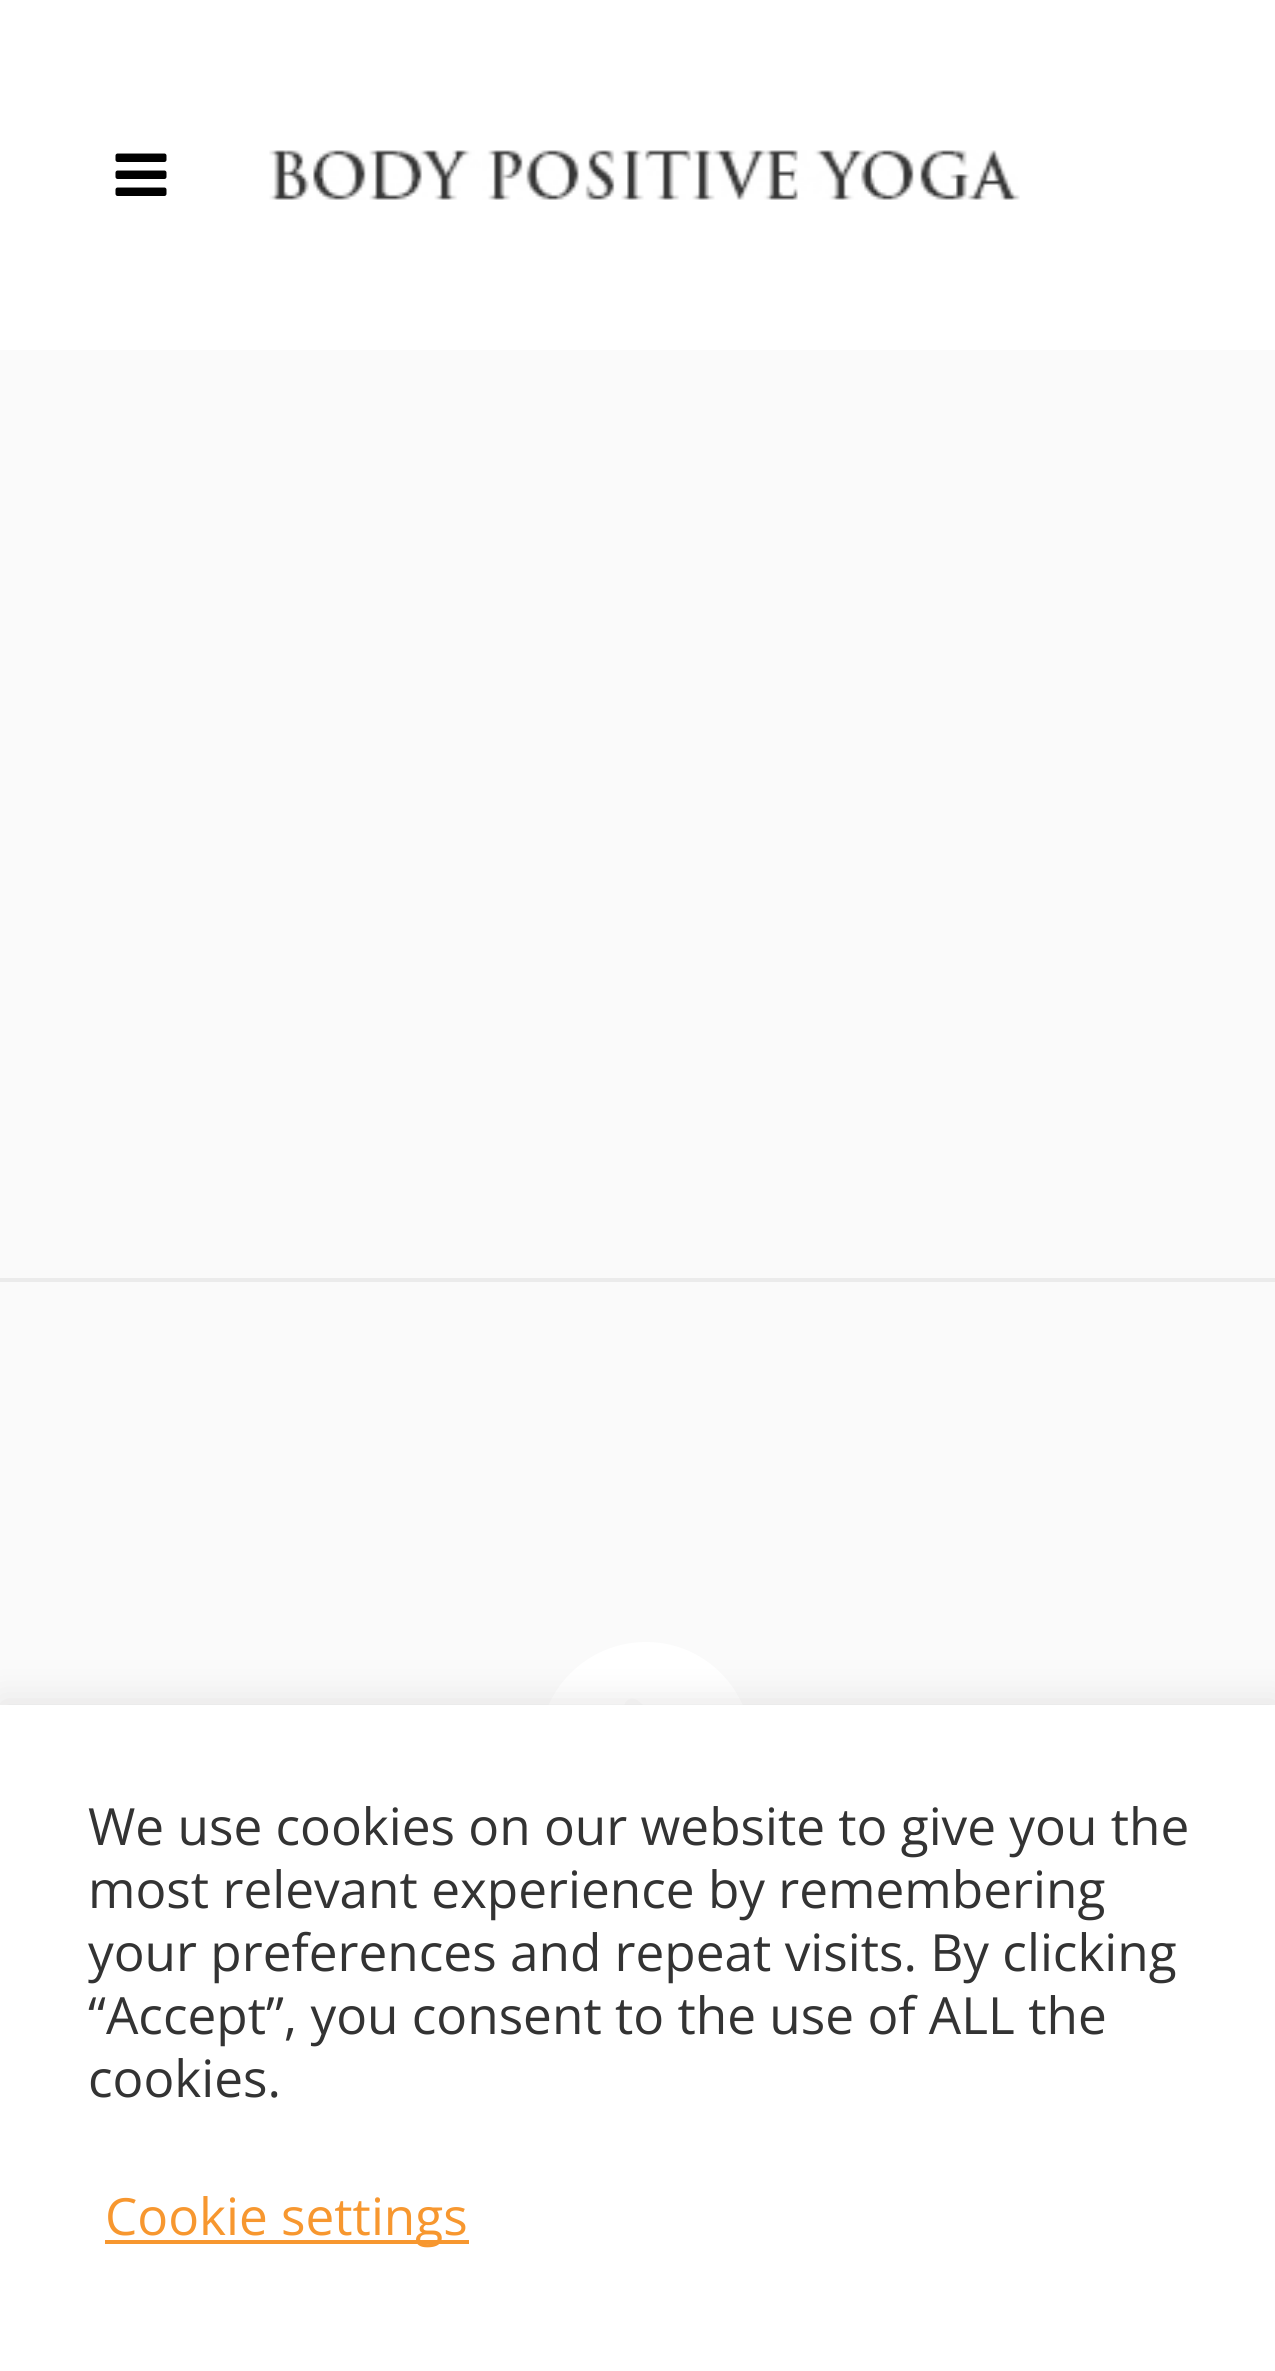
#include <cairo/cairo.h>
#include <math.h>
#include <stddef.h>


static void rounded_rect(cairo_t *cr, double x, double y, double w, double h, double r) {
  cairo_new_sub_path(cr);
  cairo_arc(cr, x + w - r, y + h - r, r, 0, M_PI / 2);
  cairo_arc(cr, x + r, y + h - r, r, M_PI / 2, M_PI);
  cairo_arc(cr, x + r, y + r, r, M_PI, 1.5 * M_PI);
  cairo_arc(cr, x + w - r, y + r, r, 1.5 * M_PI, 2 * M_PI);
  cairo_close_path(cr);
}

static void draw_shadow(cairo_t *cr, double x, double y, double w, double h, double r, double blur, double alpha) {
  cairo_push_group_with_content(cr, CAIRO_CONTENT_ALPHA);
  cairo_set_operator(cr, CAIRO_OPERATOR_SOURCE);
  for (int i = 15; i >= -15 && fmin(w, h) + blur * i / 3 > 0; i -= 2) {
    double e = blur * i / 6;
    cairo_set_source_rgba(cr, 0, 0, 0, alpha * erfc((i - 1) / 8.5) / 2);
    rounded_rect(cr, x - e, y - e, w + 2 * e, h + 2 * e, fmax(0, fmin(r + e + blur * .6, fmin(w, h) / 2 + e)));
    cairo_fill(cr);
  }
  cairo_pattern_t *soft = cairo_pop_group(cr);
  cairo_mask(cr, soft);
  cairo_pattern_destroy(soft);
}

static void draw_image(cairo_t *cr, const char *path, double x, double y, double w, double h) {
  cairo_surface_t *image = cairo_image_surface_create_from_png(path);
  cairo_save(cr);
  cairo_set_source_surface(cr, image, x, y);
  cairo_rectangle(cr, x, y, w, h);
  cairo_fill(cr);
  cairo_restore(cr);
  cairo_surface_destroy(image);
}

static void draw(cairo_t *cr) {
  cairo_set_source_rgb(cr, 1, 1, 1);
  cairo_paint(cr);
  draw_image(cr, "images/1.png", 115, 153, 52, 43);
  draw_image(cr, "images/2.png", 269, 150, 751, 50);
  cairo_set_source_rgb(cr, 250 / 255.0, 250 / 255.0, 250 / 255.0);
  cairo_rectangle(cr, 0, 350, 1275, 928);
  cairo_fill(cr);
  cairo_set_source_rgb(cr, 235 / 255.0, 235 / 255.0, 235 / 255.0);
  cairo_rectangle(cr, 0, 1278, 1275, 4);
  cairo_fill(cr);
  cairo_set_source_rgb(cr, 250 / 255.0, 250 / 255.0, 250 / 255.0);
  cairo_rectangle(cr, 0, 1282, 1275, 423);
  cairo_fill(cr);
  cairo_set_source_rgb(cr, 1, 1, 1);
  cairo_new_path(cr);
  cairo_move_to(cr, 646, 1642);
  cairo_curve_to(cr, 705, 1642, 752, 1690, 752, 1749);
  cairo_curve_to(cr, 752, 1807, 705, 1855, 646, 1855);
  cairo_curve_to(cr, 587, 1855, 539, 1807, 539, 1749);
  cairo_curve_to(cr, 539, 1690, 587, 1642, 646, 1642);
  cairo_close_path(cr);
  cairo_move_to(cr, 693, 1753);
  cairo_curve_to(cr, 701, 1747, 687, 1739, 684, 1737);
  cairo_line_to(cr, 637, 1700);
  cairo_curve_to(cr, 635, 1699, 632, 1698, 630, 1699);
  cairo_curve_to(cr, 621, 1702, 625, 1713, 625, 1719);
  cairo_line_to(cr, 625, 1777);
  cairo_curve_to(cr, 625, 1781, 622, 1792, 627, 1796);
  cairo_curve_to(cr, 630, 1799, 635, 1799, 638, 1796);
  cairo_close_path(cr);
  cairo_fill(cr);
  cairo_set_source_rgb(cr, 172 / 255.0, 171 / 255.0, 171 / 255.0);
  draw_shadow(cr, 0, 1701, 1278, 669, 0, 17.5, 0.3);
  cairo_set_source_rgb(cr, 1, 1, 1);
  cairo_rectangle(cr, 0, 1705, 1275, 666);
  cairo_fill(cr);
  cairo_set_source_rgb(cr, 247 / 255.0, 151 / 255.0, 47 / 255.0);
  cairo_rectangle(cr, 105, 2240, 364, 4);
  cairo_fill(cr);
  cairo_select_font_face(cr, "Open Sans", CAIRO_FONT_SLANT_NORMAL, CAIRO_FONT_WEIGHT_NORMAL);
  cairo_set_font_size(cr, 51.3);
  cairo_set_source_rgb(cr, 51 / 255.0, 51 / 255.0, 51 / 255.0);
  cairo_move_to(cr, 88, 1845);
  cairo_show_text(cr, "We use cookies on our website to give you the");
  cairo_move_to(cr, 88, 1908);
  cairo_show_text(cr, "most relevant experience by remembering");
  cairo_move_to(cr, 88, 1971);
  cairo_show_text(cr, "your preferences and repeat visits. By clicking");
  cairo_move_to(cr, 88, 2034);
  cairo_show_text(cr, "“Accept”, you consent to the use of ALL the");
  cairo_move_to(cr, 88, 2097);
  cairo_show_text(cr, "cookies.");
  cairo_set_source_rgb(cr, 247 / 255.0, 151 / 255.0, 47 / 255.0);
  cairo_move_to(cr, 105, 2235);
  cairo_show_text(cr, "Cookie settings");
}

int main(void) {
  cairo_surface_t *surface = cairo_image_surface_create(CAIRO_FORMAT_RGB24, 1275, 2371);
  cairo_t *cr = cairo_create(surface);
  cairo_font_options_t *options = cairo_font_options_create();
  cairo_font_options_set_hint_metrics(options, CAIRO_HINT_METRICS_OFF);
  cairo_font_options_set_hint_style(options, CAIRO_HINT_STYLE_NONE);
  cairo_set_font_options(cr, options);
  cairo_set_miter_limit(cr, 4);
  draw(cr);
  cairo_surface_write_to_png(surface, "out.png");
  cairo_font_options_destroy(options);
  cairo_destroy(cr);
  cairo_surface_destroy(surface);
  return 0;
}
